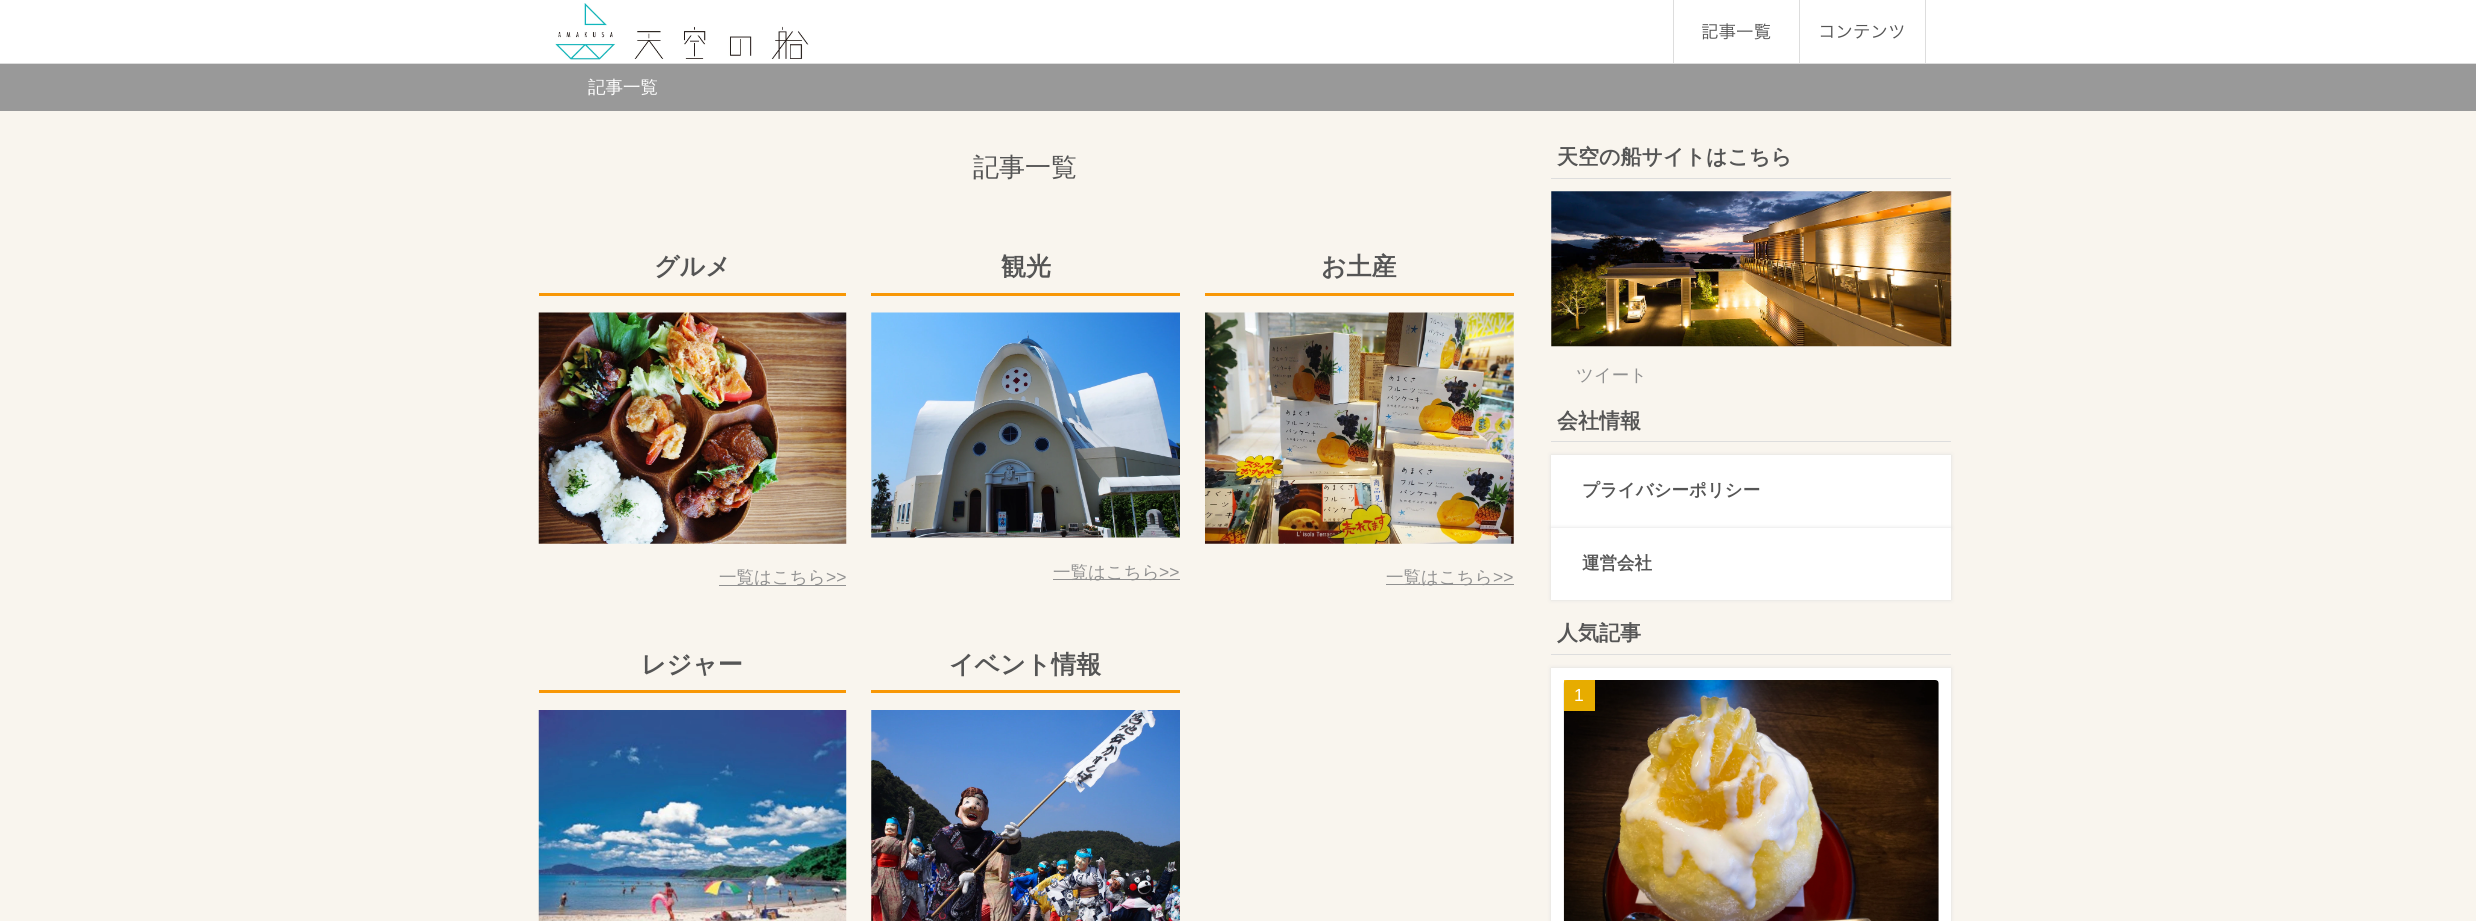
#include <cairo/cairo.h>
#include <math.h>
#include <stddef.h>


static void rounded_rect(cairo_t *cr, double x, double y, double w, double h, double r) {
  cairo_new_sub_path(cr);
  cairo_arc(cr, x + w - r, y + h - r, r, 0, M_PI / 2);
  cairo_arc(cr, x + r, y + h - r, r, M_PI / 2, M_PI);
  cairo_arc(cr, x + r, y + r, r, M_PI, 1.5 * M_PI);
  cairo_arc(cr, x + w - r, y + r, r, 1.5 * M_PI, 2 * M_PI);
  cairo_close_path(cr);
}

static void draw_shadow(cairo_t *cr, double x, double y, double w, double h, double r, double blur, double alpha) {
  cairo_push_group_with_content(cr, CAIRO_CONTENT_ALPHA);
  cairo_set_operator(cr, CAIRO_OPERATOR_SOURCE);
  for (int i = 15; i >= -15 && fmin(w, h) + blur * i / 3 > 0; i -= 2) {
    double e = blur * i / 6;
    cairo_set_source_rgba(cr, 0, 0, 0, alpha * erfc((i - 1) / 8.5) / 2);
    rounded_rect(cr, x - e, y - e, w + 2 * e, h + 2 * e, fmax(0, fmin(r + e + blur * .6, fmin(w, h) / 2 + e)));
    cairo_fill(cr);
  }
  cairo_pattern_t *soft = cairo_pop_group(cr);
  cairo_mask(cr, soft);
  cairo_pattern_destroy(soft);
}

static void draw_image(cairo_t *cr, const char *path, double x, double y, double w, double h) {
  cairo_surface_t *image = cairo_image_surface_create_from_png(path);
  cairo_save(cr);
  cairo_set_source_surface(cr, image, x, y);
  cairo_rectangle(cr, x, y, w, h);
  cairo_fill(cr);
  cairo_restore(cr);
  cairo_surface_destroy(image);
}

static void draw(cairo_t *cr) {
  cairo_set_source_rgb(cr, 1, 1, 1);
  cairo_paint(cr);
  cairo_set_source_rgb(cr, 221 / 255.0, 221 / 255.0, 221 / 255.0);
  cairo_rectangle(cr, 0, 63, 2476, 1);
  cairo_fill(cr);
  draw_image(cr, "images/1.png", 555, 3, 254, 57);
  cairo_rectangle(cr, 1799, 0, 1, 63);
  cairo_fill(cr);
  cairo_rectangle(cr, 1673, 0, 1, 63);
  cairo_fill(cr);
  cairo_rectangle(cr, 1925, 0, 1, 63);
  cairo_fill(cr);
  cairo_set_source_rgb(cr, 249 / 255.0, 245 / 255.0, 238 / 255.0);
  cairo_rectangle(cr, 0, 111, 2476, 810);
  cairo_fill(cr);
  cairo_set_source_rgb(cr, 153 / 255.0, 153 / 255.0, 153 / 255.0);
  cairo_rectangle(cr, 0, 64, 2476, 47);
  cairo_fill(cr);
  cairo_set_source_rgb(cr, 248 / 255.0, 151 / 255.0, 5 / 255.0);
  cairo_rectangle(cr, 539, 293, 307, 3);
  cairo_fill(cr);
  draw_image(cr, "images/2.png", 538, 312, 309, 232);
  cairo_set_source_rgb(cr, 145 / 255.0, 145 / 255.0, 145 / 255.0);
  cairo_rectangle(cr, 719, 585, 127, 1);
  cairo_fill(cr);
  cairo_set_source_rgb(cr, 248 / 255.0, 151 / 255.0, 5 / 255.0);
  cairo_rectangle(cr, 871, 293, 309, 3);
  cairo_fill(cr);
  draw_image(cr, "images/3.png", 871, 312, 309, 226);
  cairo_set_source_rgb(cr, 145 / 255.0, 145 / 255.0, 145 / 255.0);
  cairo_rectangle(cr, 1053, 579, 127, 1);
  cairo_fill(cr);
  cairo_set_source_rgb(cr, 248 / 255.0, 151 / 255.0, 5 / 255.0);
  cairo_rectangle(cr, 1205, 293, 309, 3);
  cairo_fill(cr);
  draw_image(cr, "images/4.png", 1205, 312, 309, 232);
  cairo_set_source_rgb(cr, 145 / 255.0, 145 / 255.0, 145 / 255.0);
  cairo_rectangle(cr, 1386, 584, 128, 1);
  cairo_fill(cr);
  cairo_set_source_rgb(cr, 248 / 255.0, 151 / 255.0, 5 / 255.0);
  cairo_rectangle(cr, 539, 690, 307, 3);
  cairo_fill(cr);
  draw_image(cr, "images/5.png", 538, 710, 309, 211);
  cairo_rectangle(cr, 871, 690, 309, 3);
  cairo_fill(cr);
  draw_image(cr, "images/6.png", 871, 710, 309, 211);
  cairo_set_source_rgb(cr, 221 / 255.0, 221 / 255.0, 221 / 255.0);
  cairo_rectangle(cr, 1551, 178, 400, 1);
  cairo_fill(cr);
  draw_image(cr, "images/7.png", 1551, 191, 401, 156);
  cairo_rectangle(cr, 1551, 441, 400, 1);
  cairo_fill(cr);
  cairo_set_source_rgb(cr, 221 / 255.0, 221 / 255.0, 221 / 255.0);
  draw_shadow(cr, 1551, 455, 400, 73, 0, 2, 1);
  cairo_set_source_rgb(cr, 1, 1, 1);
  cairo_rectangle(cr, 1551, 455, 400, 73);
  cairo_fill(cr);
  cairo_set_source_rgb(cr, 221 / 255.0, 221 / 255.0, 221 / 255.0);
  draw_shadow(cr, 1551, 528, 400, 72, 0, 2, 1);
  cairo_set_source_rgb(cr, 1, 1, 1);
  cairo_rectangle(cr, 1551, 528, 400, 72);
  cairo_fill(cr);
  cairo_set_source_rgb(cr, 221 / 255.0, 221 / 255.0, 221 / 255.0);
  cairo_rectangle(cr, 1551, 654, 400, 1);
  cairo_fill(cr);
  cairo_set_source_rgb(cr, 221 / 255.0, 221 / 255.0, 221 / 255.0);
  draw_shadow(cr, 1551, 668, 400, 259, 0, 2, 1);
  cairo_set_source_rgb(cr, 1, 1, 1);
  cairo_rectangle(cr, 1551, 668, 400, 253);
  cairo_fill(cr);
  draw_image(cr, "images/8.png", 1563, 680, 376, 241);
  cairo_set_source_rgba(cr, 1, 191 / 255.0, 0, 0.9);
  cairo_rectangle(cr, 1564, 680, 31, 31);
  cairo_fill(cr);
  cairo_select_font_face(cr, "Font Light", CAIRO_FONT_SLANT_NORMAL, CAIRO_FONT_WEIGHT_NORMAL);
  cairo_set_font_size(cr, 17.5);
  cairo_set_source_rgb(cr, 85 / 255.0, 85 / 255.0, 85 / 255.0);
  cairo_move_to(cr, 1701, 38);
  cairo_show_text(cr, "記事一覧");
  cairo_move_to(cr, 1818, 38);
  cairo_show_text(cr, "コンテンツ");
  cairo_select_font_face(cr, "WenQuanYi Zen Hei Medium", CAIRO_FONT_SLANT_NORMAL, CAIRO_FONT_WEIGHT_NORMAL);
  cairo_set_source_rgb(cr, 1, 1, 1);
  cairo_move_to(cr, 588, 93);
  cairo_show_text(cr, "記事一覧");
  cairo_set_font_size(cr, 26);
  cairo_set_source_rgb(cr, 85 / 255.0, 85 / 255.0, 85 / 255.0);
  cairo_move_to(cr, 973, 176);
  cairo_show_text(cr, "記事一覧");
  cairo_select_font_face(cr, "WenQuanYi Zen Hei", CAIRO_FONT_SLANT_NORMAL, CAIRO_FONT_WEIGHT_BOLD);
  cairo_set_font_size(cr, 25);
  cairo_move_to(cr, 654, 275);
  cairo_show_text(cr, "グルメ");
  cairo_select_font_face(cr, "WenQuanYi Zen Hei Medium", CAIRO_FONT_SLANT_NORMAL, CAIRO_FONT_WEIGHT_NORMAL);
  cairo_set_font_size(cr, 17.5);
  cairo_set_source_rgb(cr, 145 / 255.0, 145 / 255.0, 145 / 255.0);
  cairo_move_to(cr, 719, 583);
  cairo_show_text(cr, "一覧はこちら");
  cairo_select_font_face(cr, "Liberation Sans", CAIRO_FONT_SLANT_NORMAL, CAIRO_FONT_WEIGHT_NORMAL);
  cairo_move_to(cr, 826, 583);
  cairo_show_text(cr, ">>");
  cairo_select_font_face(cr, "WenQuanYi Zen Hei", CAIRO_FONT_SLANT_NORMAL, CAIRO_FONT_WEIGHT_BOLD);
  cairo_set_font_size(cr, 25);
  cairo_set_source_rgb(cr, 85 / 255.0, 85 / 255.0, 85 / 255.0);
  cairo_move_to(cr, 1001, 275);
  cairo_show_text(cr, "観光");
  cairo_select_font_face(cr, "WenQuanYi Zen Hei Medium", CAIRO_FONT_SLANT_NORMAL, CAIRO_FONT_WEIGHT_NORMAL);
  cairo_set_font_size(cr, 17.5);
  cairo_set_source_rgb(cr, 145 / 255.0, 145 / 255.0, 145 / 255.0);
  cairo_move_to(cr, 1053, 578);
  cairo_show_text(cr, "一覧はこちら");
  cairo_select_font_face(cr, "Liberation Sans", CAIRO_FONT_SLANT_NORMAL, CAIRO_FONT_WEIGHT_NORMAL);
  cairo_move_to(cr, 1159, 578);
  cairo_show_text(cr, ">>");
  cairo_select_font_face(cr, "WenQuanYi Zen Hei", CAIRO_FONT_SLANT_NORMAL, CAIRO_FONT_WEIGHT_BOLD);
  cairo_set_font_size(cr, 25);
  cairo_set_source_rgb(cr, 85 / 255.0, 85 / 255.0, 85 / 255.0);
  cairo_move_to(cr, 1321, 275);
  cairo_show_text(cr, "お土産");
  cairo_select_font_face(cr, "WenQuanYi Zen Hei Medium", CAIRO_FONT_SLANT_NORMAL, CAIRO_FONT_WEIGHT_NORMAL);
  cairo_set_font_size(cr, 17.5);
  cairo_set_source_rgb(cr, 145 / 255.0, 145 / 255.0, 145 / 255.0);
  cairo_move_to(cr, 1386, 583);
  cairo_show_text(cr, "一覧はこちら");
  cairo_select_font_face(cr, "Liberation Sans", CAIRO_FONT_SLANT_NORMAL, CAIRO_FONT_WEIGHT_NORMAL);
  cairo_move_to(cr, 1493, 583);
  cairo_show_text(cr, ">>");
  cairo_select_font_face(cr, "WenQuanYi Zen Hei", CAIRO_FONT_SLANT_NORMAL, CAIRO_FONT_WEIGHT_BOLD);
  cairo_set_font_size(cr, 25);
  cairo_set_source_rgb(cr, 85 / 255.0, 85 / 255.0, 85 / 255.0);
  cairo_move_to(cr, 641, 673);
  cairo_show_text(cr, "レジャー");
  cairo_move_to(cr, 949, 673);
  cairo_show_text(cr, "イベント情報");
  cairo_set_font_size(cr, 21);
  cairo_move_to(cr, 1557, 164);
  cairo_show_text(cr, "天空の船サイトはこちら");
  cairo_select_font_face(cr, "WenQuanYi Zen Hei Medium", CAIRO_FONT_SLANT_NORMAL, CAIRO_FONT_WEIGHT_NORMAL);
  cairo_set_font_size(cr, 17.5);
  cairo_set_source_rgb(cr, 145 / 255.0, 145 / 255.0, 145 / 255.0);
  cairo_move_to(cr, 1576, 381);
  cairo_show_text(cr, "ツイート");
  cairo_select_font_face(cr, "WenQuanYi Zen Hei", CAIRO_FONT_SLANT_NORMAL, CAIRO_FONT_WEIGHT_BOLD);
  cairo_set_font_size(cr, 21);
  cairo_set_source_rgb(cr, 85 / 255.0, 85 / 255.0, 85 / 255.0);
  cairo_move_to(cr, 1557, 428);
  cairo_show_text(cr, "会社情報");
  cairo_set_font_size(cr, 17.5);
  cairo_move_to(cr, 1582, 496);
  cairo_show_text(cr, "プライバシーポリシー");
  cairo_move_to(cr, 1582, 569);
  cairo_show_text(cr, "運営会社");
  cairo_set_font_size(cr, 21);
  cairo_move_to(cr, 1557, 640);
  cairo_show_text(cr, "人気記事");
  cairo_select_font_face(cr, "Liberation Sans", CAIRO_FONT_SLANT_NORMAL, CAIRO_FONT_WEIGHT_NORMAL);
  cairo_set_font_size(cr, 17.5);
  cairo_set_source_rgb(cr, 1, 1, 1);
  cairo_move_to(cr, 1574, 701);
  cairo_show_text(cr, "1");
}

int main(void) {
  cairo_surface_t *surface = cairo_image_surface_create(CAIRO_FORMAT_RGB24, 2476, 921);
  cairo_t *cr = cairo_create(surface);
  cairo_font_options_t *options = cairo_font_options_create();
  cairo_font_options_set_hint_metrics(options, CAIRO_HINT_METRICS_OFF);
  cairo_font_options_set_hint_style(options, CAIRO_HINT_STYLE_NONE);
  cairo_set_font_options(cr, options);
  cairo_set_miter_limit(cr, 4);
  draw(cr);
  cairo_surface_write_to_png(surface, "out.png");
  cairo_font_options_destroy(options);
  cairo_destroy(cr);
  cairo_surface_destroy(surface);
  return 0;
}
